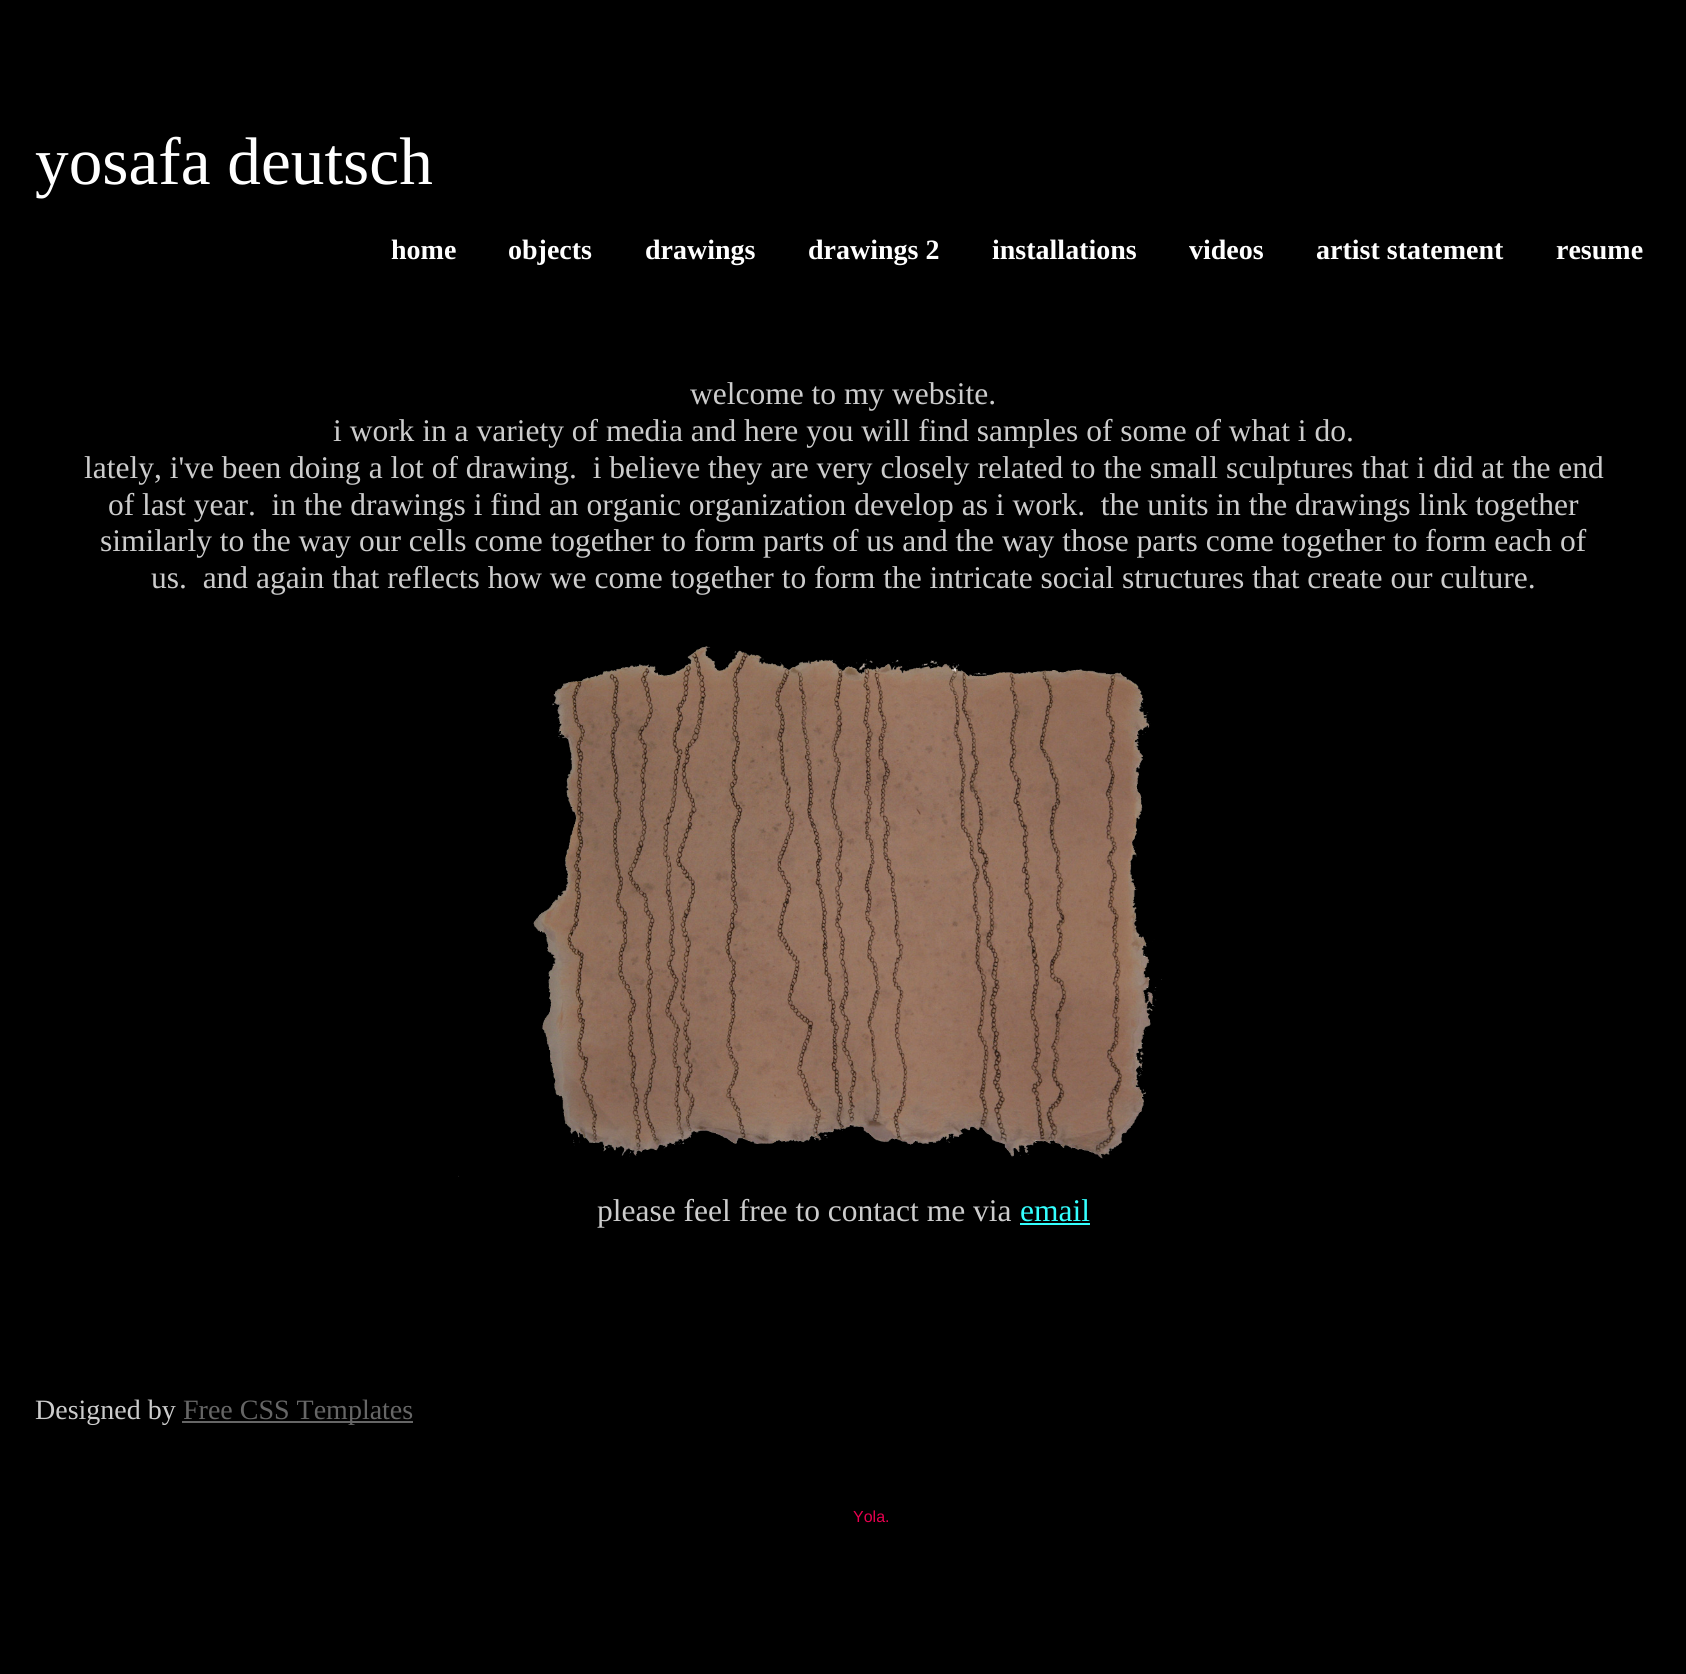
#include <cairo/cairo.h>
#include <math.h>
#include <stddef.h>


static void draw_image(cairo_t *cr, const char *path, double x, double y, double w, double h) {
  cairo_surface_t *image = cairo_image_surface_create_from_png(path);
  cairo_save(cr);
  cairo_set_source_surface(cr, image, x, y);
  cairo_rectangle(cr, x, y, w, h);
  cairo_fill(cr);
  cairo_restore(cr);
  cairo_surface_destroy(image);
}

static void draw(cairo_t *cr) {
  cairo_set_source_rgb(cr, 0, 0, 0);
  cairo_paint(cr);
  draw_image(cr, "images/1.png", 458, 646, 704, 531);
  cairo_set_source_rgb(cr, 51 / 255.0, 1, 1);
  cairo_rectangle(cr, 1020, 1223, 70, 2);
  cairo_fill(cr);
  cairo_set_source_rgb(cr, 102 / 255.0, 102 / 255.0, 102 / 255.0);
  cairo_rectangle(cr, 182, 1421, 231, 2);
  cairo_fill(cr);
  cairo_select_font_face(cr, "Liberation Serif", CAIRO_FONT_SLANT_NORMAL, CAIRO_FONT_WEIGHT_NORMAL);
  cairo_set_font_size(cr, 67.25);
  cairo_set_source_rgb(cr, 1, 1, 1);
  cairo_move_to(cr, 35, 184);
  cairo_show_text(cr, "yosafa deutsch");
  cairo_select_font_face(cr, "Liberation Serif", CAIRO_FONT_SLANT_NORMAL, CAIRO_FONT_WEIGHT_BOLD);
  cairo_set_font_size(cr, 28);
  cairo_move_to(cr, 391, 259);
  cairo_show_text(cr, "home");
  cairo_move_to(cr, 508, 259);
  cairo_show_text(cr, "objects");
  cairo_move_to(cr, 645, 259);
  cairo_show_text(cr, "drawings");
  cairo_move_to(cr, 808, 259);
  cairo_show_text(cr, "drawings 2");
  cairo_move_to(cr, 992, 259);
  cairo_show_text(cr, "installations");
  cairo_move_to(cr, 1189, 259);
  cairo_show_text(cr, "videos");
  cairo_move_to(cr, 1316, 259);
  cairo_show_text(cr, "artist statement");
  cairo_move_to(cr, 1556, 259);
  cairo_show_text(cr, "resume");
  cairo_select_font_face(cr, "Liberation Serif", CAIRO_FONT_SLANT_NORMAL, CAIRO_FONT_WEIGHT_NORMAL);
  cairo_set_font_size(cr, 31.5);
  cairo_set_source_rgb(cr, 204 / 255.0, 204 / 255.0, 204 / 255.0);
  cairo_move_to(cr, 690, 404);
  cairo_show_text(cr, "welcome to my website.");
  cairo_move_to(cr, 333, 441);
  cairo_show_text(cr, "i work in a variety of media and here you will find samples of some of what i do.");
  cairo_move_to(cr, 84, 478);
  cairo_show_text(cr, "lately, i've been doing a lot of drawing.  i believe they are very closely related to the small sculptures that i did at the end");
  cairo_move_to(cr, 108, 515);
  cairo_show_text(cr, "of last year.  in the drawings i find an organic organization develop as i work.  the units in the drawings link together");
  cairo_move_to(cr, 100, 551);
  cairo_show_text(cr, "similarly to the way our cells come together to form parts of us and the way those parts come together to form each of");
  cairo_move_to(cr, 151, 588);
  cairo_show_text(cr, "us.  and again that reflects how we come together to form the intricate social structures that create our culture.");
  cairo_move_to(cr, 597, 1221);
  cairo_show_text(cr, "please feel free to contact me via");
  cairo_set_source_rgb(cr, 51 / 255.0, 1, 1);
  cairo_move_to(cr, 1020, 1221);
  cairo_show_text(cr, "email");
  cairo_set_font_size(cr, 28);
  cairo_set_source_rgb(cr, 204 / 255.0, 204 / 255.0, 204 / 255.0);
  cairo_move_to(cr, 35, 1419);
  cairo_show_text(cr, "Designed by");
  cairo_set_source_rgb(cr, 102 / 255.0, 102 / 255.0, 102 / 255.0);
  cairo_move_to(cr, 183, 1419);
  cairo_show_text(cr, "Free CSS Templates");
  cairo_select_font_face(cr, "Liberation Sans", CAIRO_FONT_SLANT_NORMAL, CAIRO_FONT_WEIGHT_NORMAL);
  cairo_set_font_size(cr, 16);
  cairo_set_source_rgb(cr, 231 / 255.0, 0, 79 / 255.0);
  cairo_move_to(cr, 853, 1522);
  cairo_show_text(cr, "Yola.");
}

int main(void) {
  cairo_surface_t *surface = cairo_image_surface_create(CAIRO_FORMAT_RGB24, 1686, 1674);
  cairo_t *cr = cairo_create(surface);
  cairo_font_options_t *options = cairo_font_options_create();
  cairo_font_options_set_hint_metrics(options, CAIRO_HINT_METRICS_OFF);
  cairo_font_options_set_hint_style(options, CAIRO_HINT_STYLE_NONE);
  cairo_set_font_options(cr, options);
  cairo_set_miter_limit(cr, 4);
  draw(cr);
  cairo_surface_write_to_png(surface, "out.png");
  cairo_font_options_destroy(options);
  cairo_destroy(cr);
  cairo_surface_destroy(surface);
  return 0;
}
